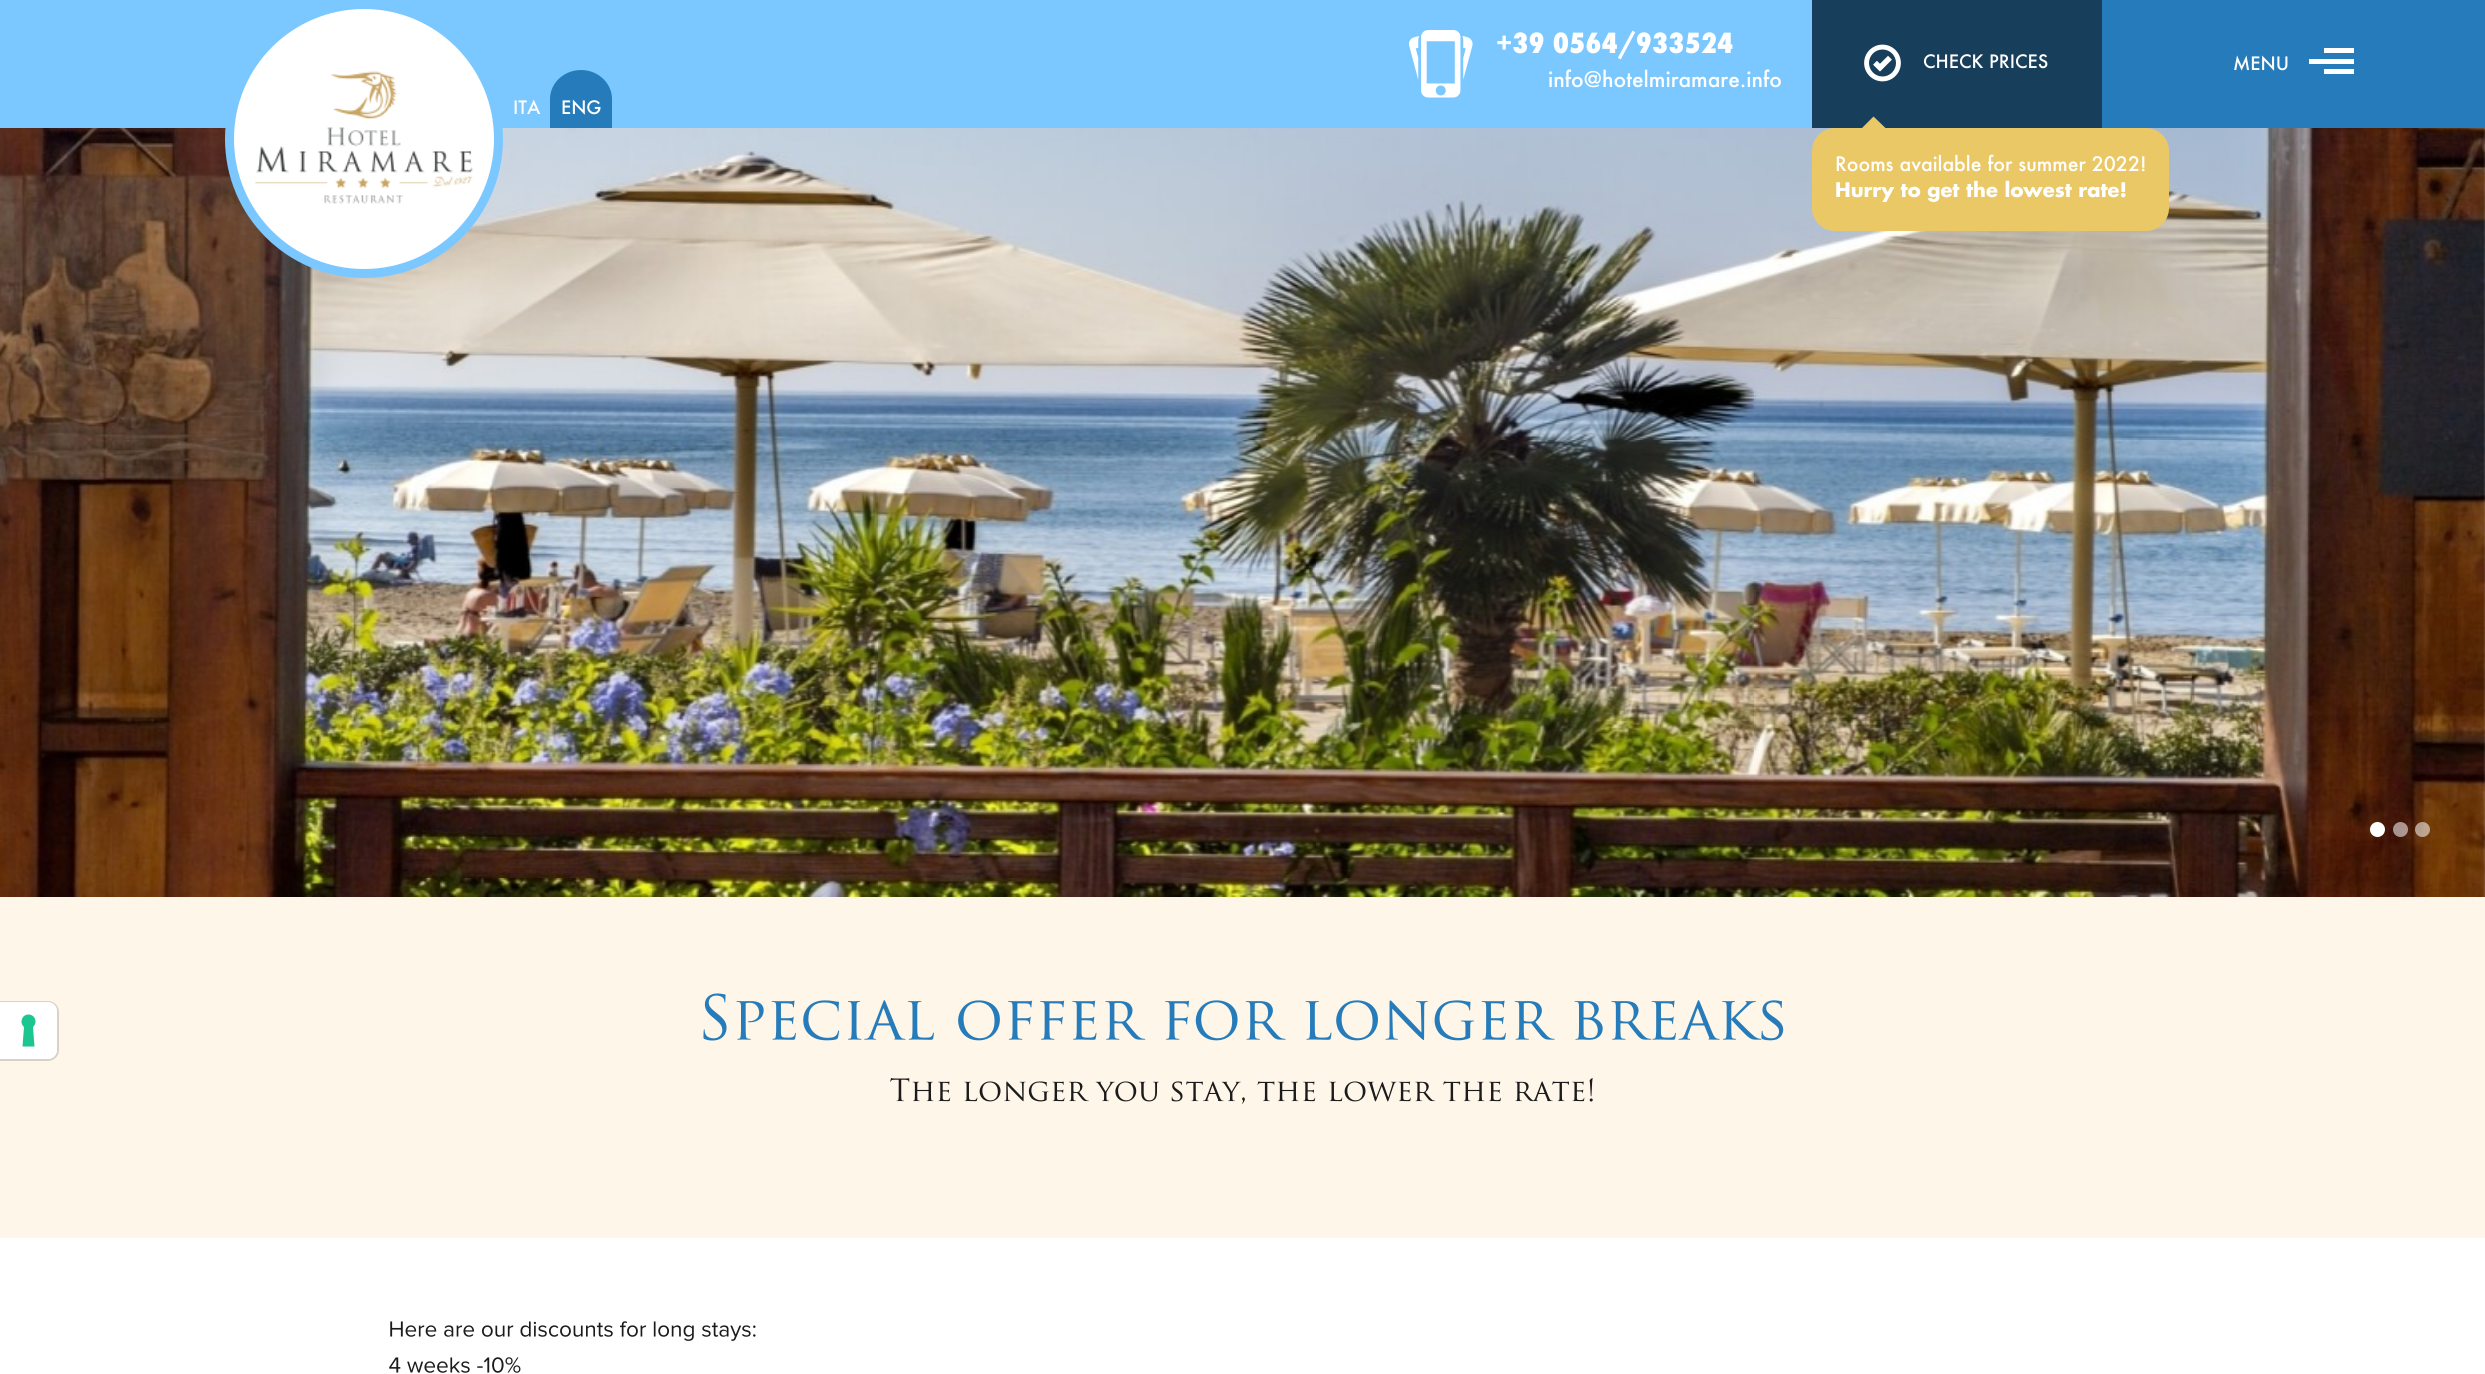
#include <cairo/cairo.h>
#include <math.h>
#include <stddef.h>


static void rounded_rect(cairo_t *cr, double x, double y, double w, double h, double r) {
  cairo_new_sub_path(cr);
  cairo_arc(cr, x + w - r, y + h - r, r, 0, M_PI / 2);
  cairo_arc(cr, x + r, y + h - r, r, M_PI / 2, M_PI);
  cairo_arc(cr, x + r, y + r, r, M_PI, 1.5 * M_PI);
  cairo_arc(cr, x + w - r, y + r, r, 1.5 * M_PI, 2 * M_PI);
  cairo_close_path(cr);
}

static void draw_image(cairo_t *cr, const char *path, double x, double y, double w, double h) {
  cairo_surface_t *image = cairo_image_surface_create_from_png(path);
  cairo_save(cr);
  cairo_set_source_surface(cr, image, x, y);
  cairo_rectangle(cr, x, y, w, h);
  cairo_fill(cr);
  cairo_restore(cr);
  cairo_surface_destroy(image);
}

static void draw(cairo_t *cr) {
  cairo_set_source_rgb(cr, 254 / 255.0, 246 / 255.0, 232 / 255.0);
  cairo_paint(cr);
  cairo_set_source_rgb(cr, 122 / 255.0, 200 / 255.0, 1);
  cairo_rectangle(cr, 0, 0, 1812, 128);
  cairo_fill(cr);
  draw_image(cr, "images/4.png", 0, 128, 2485, 769);
  cairo_set_source_rgb(cr, 1, 1, 1);
  cairo_arc(cr, 364, 139, 134.5, 0, 2 * M_PI);
  cairo_fill_preserve(cr);
  cairo_set_source_rgb(cr, 122 / 255.0, 200 / 255.0, 1);
  cairo_set_line_width(cr, 9);
  cairo_stroke(cr);
  draw_image(cr, "images/1.png", 255, 71, 218, 133);
  draw_image(cr, "images/2.png", 1409, 30, 64, 68);
  cairo_set_source_rgb(cr, 23 / 255.0, 63 / 255.0, 91 / 255.0);
  cairo_rectangle(cr, 1812, 0, 290, 128);
  cairo_fill(cr);
  draw_image(cr, "images/3.png", 1864, 44, 37, 38);
  cairo_set_source_rgb(cr, 235 / 255.0, 200 / 255.0, 102 / 255.0);
  rounded_rect(cr, 1812, 128, 357, 103, 23);
  cairo_fill(cr);
  cairo_new_path(cr);
  cairo_move_to(cr, 1873.5, 116.5);
  cairo_line_to(cr, 1886.5, 129);
  cairo_line_to(cr, 1873.5, 141.5);
  cairo_line_to(cr, 1861, 129);
  cairo_close_path(cr);
  cairo_fill(cr);
  cairo_set_source_rgb(cr, 38 / 255.0, 124 / 255.0, 186 / 255.0);
  cairo_rectangle(cr, 2102, 0, 383, 128);
  cairo_fill(cr);
  cairo_set_source_rgb(cr, 1, 1, 1);
  cairo_rectangle(cr, 2324, 48, 30, 5);
  cairo_fill(cr);
  cairo_rectangle(cr, 2309, 59, 45, 5);
  cairo_fill(cr);
  cairo_rectangle(cr, 2324, 69, 30, 5);
  cairo_fill(cr);
  cairo_set_source_rgb(cr, 38 / 255.0, 124 / 255.0, 186 / 255.0);
  cairo_new_path(cr);
  cairo_move_to(cr, 581, 70);
  cairo_curve_to(cr, 598, 70, 612, 83, 612, 99);
  cairo_line_to(cr, 612, 128);
  cairo_line_to(cr, 550, 128);
  cairo_line_to(cr, 550, 99);
  cairo_curve_to(cr, 550, 83, 564, 70, 581, 70);
  cairo_close_path(cr);
  cairo_fill(cr);
  cairo_set_source_rgb(cr, 1, 1, 1);
  cairo_arc(cr, 2377.5, 829.5, 7.5, 0, 2 * M_PI);
  cairo_fill(cr);
  cairo_set_source_rgba(cr, 1, 1, 1, 0.55);
  cairo_arc(cr, 2400.5, 829.5, 7.5, 0, 2 * M_PI);
  cairo_fill(cr);
  cairo_arc(cr, 2422.5, 829.5, 7.5, 0, 2 * M_PI);
  cairo_fill(cr);
  draw_image(cr, "images/5.png", 703, 993, 1081, 48);
  draw_image(cr, "images/6.png", 890, 1078, 703, 26);
  cairo_set_source_rgb(cr, 1, 1, 1);
  cairo_rectangle(cr, 0, 1238, 2485, 136);
  cairo_fill(cr);
  draw_image(cr, "images/7.png", 390, 1321, 366, 20);
  draw_image(cr, "images/8.png", 389, 1357, 132, 16);
  cairo_new_path(cr);
  cairo_move_to(cr, 0, 1002);
  cairo_line_to(cr, 48, 1002);
  cairo_curve_to(cr, 53.5, 1002, 58, 1006.5, 58, 1012);
  cairo_line_to(cr, 58, 1050);
  cairo_curve_to(cr, 58, 1055.5, 53.5, 1060, 48, 1060);
  cairo_line_to(cr, 0, 1060);
  cairo_close_path(cr);
  cairo_set_source_rgb(cr, 216 / 255.0, 209 / 255.0, 197 / 255.0);
  cairo_set_line_width(cr, 2);
  cairo_stroke(cr);
  cairo_set_source_rgb(cr, 1, 1, 1);
  cairo_new_path(cr);
  cairo_move_to(cr, 0, 1002);
  cairo_line_to(cr, 48, 1002);
  cairo_curve_to(cr, 53, 1002, 57, 1006, 57, 1011);
  cairo_line_to(cr, 57, 1050);
  cairo_curve_to(cr, 57, 1055, 53, 1059, 48, 1059);
  cairo_line_to(cr, 0, 1059);
  cairo_close_path(cr);
  cairo_fill(cr);
  cairo_set_source_rgb(cr, 28 / 255.0, 198 / 255.0, 145 / 255.0);
  cairo_set_fill_rule(cr, CAIRO_FILL_RULE_EVEN_ODD);
  cairo_new_path(cr);
  cairo_move_to(cr, 28.5, 1014.5);
  cairo_curve_to(cr, 35, 1014.5, 38, 1022.5, 33, 1027);
  cairo_line_to(cr, 34.5, 1046.5);
  cairo_line_to(cr, 22.5, 1046.5);
  cairo_line_to(cr, 24, 1027);
  cairo_curve_to(cr, 19, 1022.5, 22, 1014.5, 28.5, 1014.5);
  cairo_close_path(cr);
  cairo_fill(cr);
  cairo_select_font_face(cr, "Futura ExtraBold", CAIRO_FONT_SLANT_NORMAL, CAIRO_FONT_WEIGHT_NORMAL);
  cairo_set_font_size(cr, 27);
  cairo_set_source_rgb(cr, 1, 1, 1);
  cairo_move_to(cr, 1496, 53);
  cairo_show_text(cr, "+39 0564/933524");
  cairo_select_font_face(cr, "Futura Medium", CAIRO_FONT_SLANT_NORMAL, CAIRO_FONT_WEIGHT_NORMAL);
  cairo_set_font_size(cr, 21);
  cairo_move_to(cr, 1548, 87);
  cairo_show_text(cr, "info@hotelmiramare.info");
  cairo_set_font_size(cr, 18);
  cairo_move_to(cr, 1923, 68);
  cairo_show_text(cr, "CHECK PRICES");
  cairo_set_font_size(cr, 19.5);
  cairo_move_to(cr, 1835, 171);
  cairo_show_text(cr, "Rooms available for summer 2022!");
  cairo_select_font_face(cr, "Futura", CAIRO_FONT_SLANT_NORMAL, CAIRO_FONT_WEIGHT_BOLD);
  cairo_move_to(cr, 1835, 197);
  cairo_show_text(cr, "Hurry to get the lowest rate!");
  cairo_select_font_face(cr, "Futura Medium", CAIRO_FONT_SLANT_NORMAL, CAIRO_FONT_WEIGHT_NORMAL);
  cairo_set_font_size(cr, 18);
  cairo_move_to(cr, 2233, 70);
  cairo_show_text(cr, "MENU");
  cairo_move_to(cr, 513, 114);
  cairo_show_text(cr, "ITA");
  cairo_move_to(cr, 561, 114);
  cairo_show_text(cr, "ENG");
}

int main(void) {
  cairo_surface_t *surface = cairo_image_surface_create(CAIRO_FORMAT_RGB24, 2485, 1374);
  cairo_t *cr = cairo_create(surface);
  cairo_font_options_t *options = cairo_font_options_create();
  cairo_font_options_set_hint_metrics(options, CAIRO_HINT_METRICS_OFF);
  cairo_font_options_set_hint_style(options, CAIRO_HINT_STYLE_NONE);
  cairo_set_font_options(cr, options);
  cairo_set_miter_limit(cr, 4);
  draw(cr);
  cairo_surface_write_to_png(surface, "out.png");
  cairo_font_options_destroy(options);
  cairo_destroy(cr);
  cairo_surface_destroy(surface);
  return 0;
}
